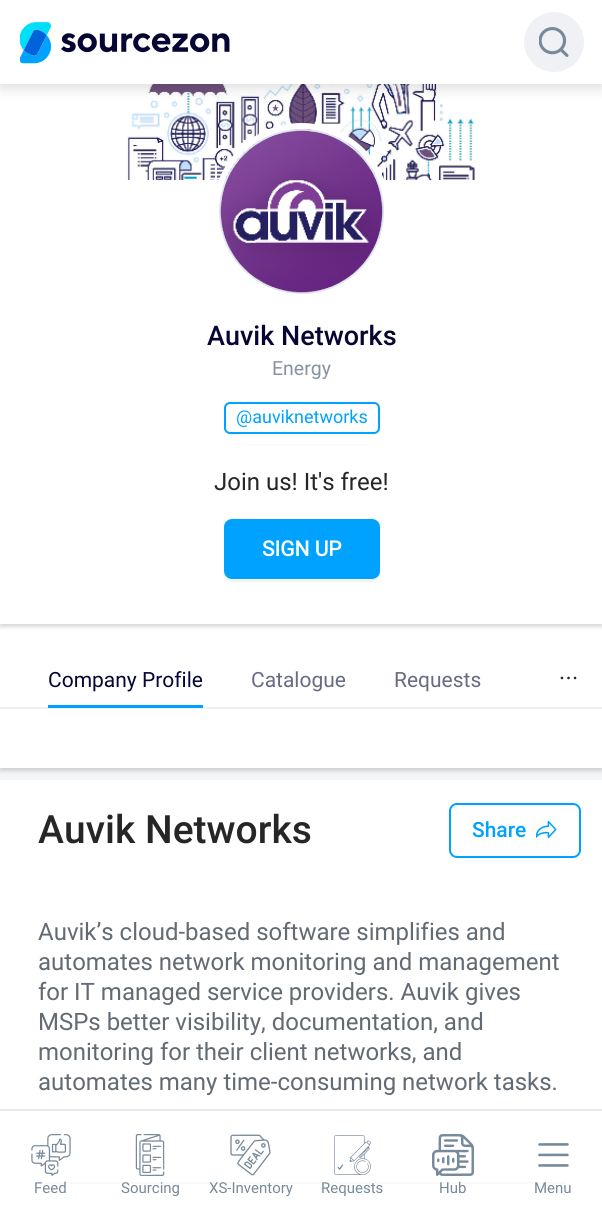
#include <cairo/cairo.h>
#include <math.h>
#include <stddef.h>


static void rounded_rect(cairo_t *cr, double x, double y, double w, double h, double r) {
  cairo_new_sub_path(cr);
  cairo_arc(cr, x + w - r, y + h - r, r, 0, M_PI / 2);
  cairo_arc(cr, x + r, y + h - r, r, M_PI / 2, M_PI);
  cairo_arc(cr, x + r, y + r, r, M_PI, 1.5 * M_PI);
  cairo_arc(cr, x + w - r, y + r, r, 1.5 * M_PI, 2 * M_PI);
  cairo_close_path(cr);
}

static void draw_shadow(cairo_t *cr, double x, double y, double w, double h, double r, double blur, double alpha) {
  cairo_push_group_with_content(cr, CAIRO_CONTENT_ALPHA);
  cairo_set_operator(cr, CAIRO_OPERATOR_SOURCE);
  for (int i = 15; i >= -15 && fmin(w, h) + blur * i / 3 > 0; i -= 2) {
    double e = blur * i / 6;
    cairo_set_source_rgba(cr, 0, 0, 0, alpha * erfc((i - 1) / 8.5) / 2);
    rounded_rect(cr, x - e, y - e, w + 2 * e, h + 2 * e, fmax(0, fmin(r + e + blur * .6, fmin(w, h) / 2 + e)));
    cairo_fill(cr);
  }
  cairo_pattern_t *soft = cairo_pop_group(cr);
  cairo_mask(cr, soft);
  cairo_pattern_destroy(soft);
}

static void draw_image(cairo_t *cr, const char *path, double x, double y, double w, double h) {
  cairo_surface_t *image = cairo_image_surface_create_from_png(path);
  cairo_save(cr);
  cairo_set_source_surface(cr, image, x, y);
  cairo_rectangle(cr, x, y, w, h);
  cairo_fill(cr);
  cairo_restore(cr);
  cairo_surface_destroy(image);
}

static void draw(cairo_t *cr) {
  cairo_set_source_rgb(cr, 243 / 255.0, 245 / 255.0, 246 / 255.0);
  cairo_paint(cr);
  cairo_set_source_rgb(cr, 0, 0, 0);
  draw_shadow(cr, 0, 624, 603, 147, 0, 2, 0.15);
  cairo_set_source_rgb(cr, 1, 1, 1);
  cairo_rectangle(cr, 0, 624, 602, 144);
  cairo_fill(cr);
  cairo_set_source_rgb(cr, 0, 0, 0);
  draw_shadow(cr, 0, 3, 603, 624, 0, 2, 0.15);
  cairo_set_source_rgb(cr, 1, 1, 1);
  cairo_rectangle(cr, 0, 84, 602, 540);
  cairo_fill(cr);
  draw_image(cr, "images/3.png", 126, 84, 349, 96);
  cairo_set_source_rgb(cr, 0, 0, 0);
  draw_shadow(cr, 0, 3, 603, 84, 0, 7.5, 0.15);
  cairo_set_source_rgb(cr, 1, 1, 1);
  cairo_rectangle(cr, 0, 0, 602, 84);
  cairo_fill(cr);
  draw_image(cr, "images/1.png", 20, 22, 210, 42);
  cairo_set_source_rgb(cr, 239 / 255.0, 241 / 255.0, 245 / 255.0);
  cairo_arc(cr, 554, 42, 30, 0, 2 * M_PI);
  cairo_fill(cr);
  draw_image(cr, "images/2.png", 539, 27, 30, 30);
  cairo_arc(cr, 301.5, 211.5, 85.5, 0, 2 * M_PI);
  cairo_set_source_rgb(cr, 1, 1, 1);
  cairo_set_line_width(cr, 6);
  cairo_stroke(cr);
  cairo_arc(cr, 301.5, 211.5, 81.5, 0, 2 * M_PI);
  cairo_set_source_rgb(cr, 223 / 255.0, 230 / 255.0, 237 / 255.0);
  cairo_set_line_width(cr, 2);
  cairo_stroke(cr);
  draw_image(cr, "images/4.png", 220, 130, 163, 163);
  rounded_rect(cr, 225, 403, 154, 30, 5);
  cairo_set_source_rgb(cr, 0, 162 / 255.0, 1);
  cairo_stroke(cr);
  cairo_set_source_rgb(cr, 244 / 255.0, 244 / 255.0, 244 / 255.0);
  cairo_new_path(cr);
  cairo_move_to(cr, 224, 574);
  cairo_curve_to(cr, 224, 579, 228, 582, 232, 582);
  cairo_line_to(cr, 372, 582);
  cairo_curve_to(cr, 376, 582, 380, 578, 380, 574);
  cairo_line_to(cr, 380, 530);
  cairo_line_to(cr, 380, 527);
  cairo_line_to(cr, 380, 572);
  cairo_curve_to(cr, 380, 576, 376, 579, 372, 579);
  cairo_line_to(cr, 231, 579);
  cairo_curve_to(cr, 228, 579, 225, 577, 224, 574);
  cairo_close_path(cr);
  cairo_fill(cr);
  cairo_set_source_rgb(cr, 0, 162 / 255.0, 1);
  rounded_rect(cr, 225, 520, 154, 58, 7);
  cairo_fill_preserve(cr);
  cairo_stroke(cr);
  cairo_set_source_rgb(cr, 240 / 255.0, 240 / 255.0, 240 / 255.0);
  cairo_rectangle(cr, 0, 707, 602, 2);
  cairo_fill(cr);
  cairo_set_source_rgb(cr, 0, 162 / 255.0, 1);
  cairo_rectangle(cr, 48, 705, 155, 3);
  cairo_fill(cr);
  draw_image(cr, "images/5.png", 560, 676, 17, 4);
  cairo_set_source_rgb(cr, 1, 1, 1);
  cairo_rectangle(cr, 0, 780, 602, 443);
  cairo_fill(cr);
  rounded_rect(cr, 450, 804, 130, 53, 7);
  cairo_set_source_rgb(cr, 0, 162 / 255.0, 1);
  cairo_stroke(cr);
  draw_image(cr, "images/6.png", 536, 820, 21, 19);
  cairo_set_source_rgb(cr, 234 / 255.0, 234 / 255.0, 234 / 255.0);
  cairo_rectangle(cr, 38, 1182, 528, 2);
  cairo_fill(cr);
  cairo_set_source_rgba(cr, 1, 1, 1, 0.7);
  cairo_rectangle(cr, 38, 1182, 528, 2);
  cairo_fill(cr);
  cairo_set_source_rgb(cr, 232 / 255.0, 232 / 255.0, 232 / 255.0);
  cairo_rectangle(cr, 0, 1109, 602, 2);
  cairo_fill(cr);
  draw_image(cr, "images/7.png", 31, 1134, 40, 42);
  draw_image(cr, "images/8.png", 135, 1134, 30, 42);
  draw_image(cr, "images/9.png", 230, 1134, 41, 42);
  draw_image(cr, "images/10.png", 334, 1135, 37, 40);
  draw_image(cr, "images/11.png", 432, 1134, 42, 42);
  draw_image(cr, "images/12.png", 538, 1143, 31, 24);
  cairo_select_font_face(cr, "Roboto Medium", CAIRO_FONT_SLANT_NORMAL, CAIRO_FONT_WEIGHT_NORMAL);
  cairo_set_font_size(cr, 27);
  cairo_set_source_rgb(cr, 5 / 255.0, 6 / 255.0, 52 / 255.0);
  cairo_move_to(cr, 207, 345);
  cairo_show_text(cr, "Auvik Networks");
  cairo_select_font_face(cr, "Roboto", CAIRO_FONT_SLANT_NORMAL, CAIRO_FONT_WEIGHT_NORMAL);
  cairo_set_font_size(cr, 19.5);
  cairo_set_source_rgb(cr, 133 / 255.0, 147 / 255.0, 160 / 255.0);
  cairo_move_to(cr, 272, 375);
  cairo_show_text(cr, "Energy");
  cairo_set_font_size(cr, 18);
  cairo_set_source_rgb(cr, 0, 162 / 255.0, 1);
  cairo_move_to(cr, 236, 423);
  cairo_show_text(cr, "@auviknetworks");
  cairo_set_font_size(cr, 24);
  cairo_set_source_rgb(cr, 38 / 255.0, 38 / 255.0, 38 / 255.0);
  cairo_move_to(cr, 214, 490);
  cairo_show_text(cr, "Join us! It's free!");
  cairo_select_font_face(cr, "Roboto", CAIRO_FONT_SLANT_NORMAL, CAIRO_FONT_WEIGHT_BOLD);
  cairo_set_font_size(cr, 21);
  cairo_set_source_rgb(cr, 1, 1, 1);
  cairo_move_to(cr, 262, 556);
  cairo_show_text(cr, "SIGN UP");
  cairo_select_font_face(cr, "Roboto", CAIRO_FONT_SLANT_NORMAL, CAIRO_FONT_WEIGHT_NORMAL);
  cairo_set_source_rgb(cr, 5 / 255.0, 6 / 255.0, 52 / 255.0);
  cairo_move_to(cr, 48, 687);
  cairo_show_text(cr, "Company Profile");
  cairo_set_source_rgb(cr, 105 / 255.0, 106 / 255.0, 133 / 255.0);
  cairo_move_to(cr, 251, 687);
  cairo_show_text(cr, "Catalogue");
  cairo_move_to(cr, 394, 687);
  cairo_show_text(cr, "Requests");
  cairo_select_font_face(cr, "Roboto Medium", CAIRO_FONT_SLANT_NORMAL, CAIRO_FONT_WEIGHT_NORMAL);
  cairo_set_font_size(cr, 39);
  cairo_set_source_rgb(cr, 38 / 255.0, 38 / 255.0, 38 / 255.0);
  cairo_move_to(cr, 38, 843);
  cairo_show_text(cr, "Auvik Networks");
  cairo_set_font_size(cr, 21);
  cairo_set_source_rgb(cr, 0, 162 / 255.0, 1);
  cairo_move_to(cr, 472, 837);
  cairo_show_text(cr, "Share");
  cairo_select_font_face(cr, "Roboto", CAIRO_FONT_SLANT_NORMAL, CAIRO_FONT_WEIGHT_NORMAL);
  cairo_set_font_size(cr, 24);
  cairo_set_source_rgb(cr, 98 / 255.0, 106 / 255.0, 115 / 255.0);
  cairo_move_to(cr, 38, 940);
  cairo_show_text(cr, "Auvik’s cloud-based software simplifies and");
  cairo_move_to(cr, 38, 970);
  cairo_show_text(cr, "automates network monitoring and management");
  cairo_move_to(cr, 38, 1000);
  cairo_show_text(cr, "for IT managed service providers. Auvik gives");
  cairo_move_to(cr, 38, 1030);
  cairo_show_text(cr, "MSPs better visibility, documentation, and");
  cairo_move_to(cr, 38, 1060);
  cairo_show_text(cr, "monitoring for their client networks, and");
  cairo_move_to(cr, 38, 1090);
  cairo_show_text(cr, "automates many time-consuming network tasks.");
  cairo_set_font_size(cr, 15);
  cairo_set_source_rgb(cr, 119 / 255.0, 137 / 255.0, 154 / 255.0);
  cairo_move_to(cr, 34, 1193);
  cairo_show_text(cr, "Feed");
  cairo_move_to(cr, 121, 1193);
  cairo_show_text(cr, "Sourcing");
  cairo_move_to(cr, 209, 1193);
  cairo_show_text(cr, "XS-Inventory");
  cairo_move_to(cr, 321, 1193);
  cairo_show_text(cr, "Requests");
  cairo_move_to(cr, 439, 1193);
  cairo_show_text(cr, "Hub");
  cairo_move_to(cr, 534, 1193);
  cairo_show_text(cr, "Menu");
}

int main(void) {
  cairo_surface_t *surface = cairo_image_surface_create(CAIRO_FORMAT_RGB24, 602, 1223);
  cairo_t *cr = cairo_create(surface);
  cairo_font_options_t *options = cairo_font_options_create();
  cairo_font_options_set_hint_metrics(options, CAIRO_HINT_METRICS_OFF);
  cairo_font_options_set_hint_style(options, CAIRO_HINT_STYLE_NONE);
  cairo_set_font_options(cr, options);
  cairo_set_miter_limit(cr, 4);
  draw(cr);
  cairo_surface_write_to_png(surface, "out.png");
  cairo_font_options_destroy(options);
  cairo_destroy(cr);
  cairo_surface_destroy(surface);
  return 0;
}
